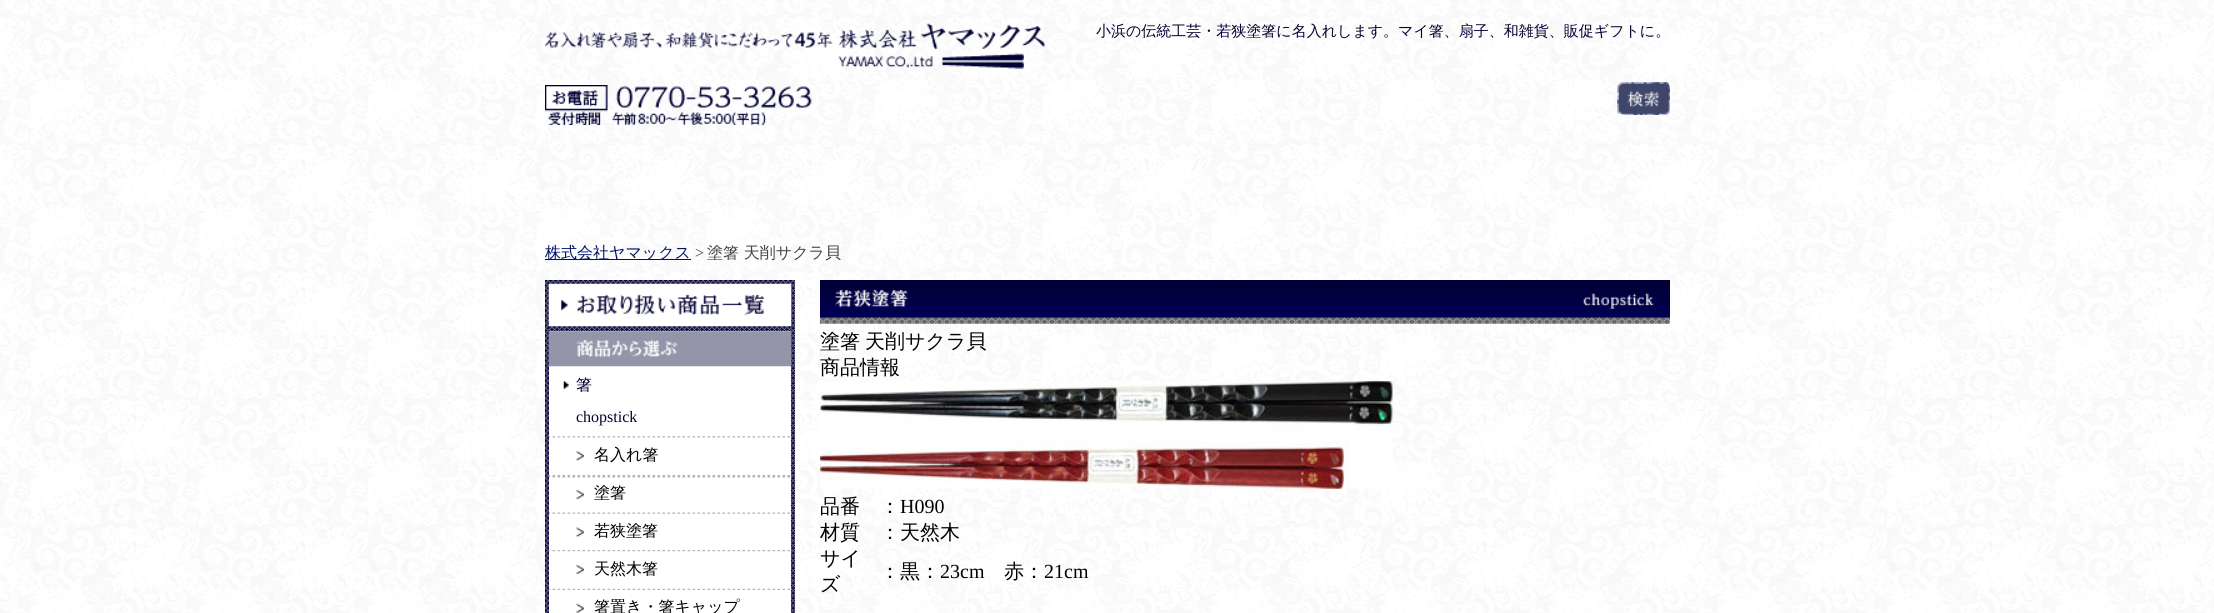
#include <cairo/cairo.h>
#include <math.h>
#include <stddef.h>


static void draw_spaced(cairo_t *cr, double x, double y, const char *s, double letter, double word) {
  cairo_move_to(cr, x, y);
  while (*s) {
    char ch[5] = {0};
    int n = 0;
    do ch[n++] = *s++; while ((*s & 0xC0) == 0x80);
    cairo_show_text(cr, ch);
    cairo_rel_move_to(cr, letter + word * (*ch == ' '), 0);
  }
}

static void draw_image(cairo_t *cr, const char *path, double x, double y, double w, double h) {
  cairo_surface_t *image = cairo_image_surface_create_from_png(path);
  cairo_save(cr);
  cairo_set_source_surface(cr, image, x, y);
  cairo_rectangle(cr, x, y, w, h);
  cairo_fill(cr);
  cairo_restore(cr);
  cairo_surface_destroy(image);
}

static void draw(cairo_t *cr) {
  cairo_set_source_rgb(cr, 1, 1, 1);
  cairo_paint(cr);
  draw_image(cr, "images/1.png", 0, 0, 2214, 613);
  draw_image(cr, "images/2.png", 545, 23, 500, 46);
  draw_image(cr, "images/3.png", 545, 85, 267, 40);
  draw_image(cr, "images/4.png", 1617, 82, 53, 33);
  draw_image(cr, "images/5.png", 1617, 82, 53, 33);
  cairo_set_source_rgb(cr, 1 / 255.0, 17 / 255.0, 106 / 255.0);
  cairo_rectangle(cr, 545, 259, 146, 1);
  cairo_fill(cr);
  draw_image(cr, "images/6.png", 545, 280, 250, 333);
  cairo_set_source_rgb(cr, 1, 1, 1);
  cairo_rectangle(cr, 549, 331, 242, 282);
  cairo_fill(cr);
  draw_image(cr, "images/7.png", 548, 283, 244, 49);
  draw_image(cr, "images/8.png", 548, 331, 244, 36);
  draw_image(cr, "images/9.png", 563, 381, 6, 8);
  draw_image(cr, "images/10.png", 548, 436, 244, 2);
  draw_image(cr, "images/11.png", 576, 451, 8, 10);
  draw_image(cr, "images/12.png", 548, 475, 244, 3);
  draw_image(cr, "images/13.png", 576, 490, 8, 10);
  draw_image(cr, "images/14.png", 548, 512, 244, 2);
  draw_image(cr, "images/15.png", 576, 527, 8, 11);
  draw_image(cr, "images/16.png", 548, 550, 244, 2);
  draw_image(cr, "images/13.png", 576, 565, 8, 10);
  draw_image(cr, "images/17.png", 548, 588, 244, 2);
  draw_image(cr, "images/18.png", 576, 603, 8, 10);
  draw_image(cr, "images/19.png", 820, 280, 850, 44);
  draw_image(cr, "images/20.png", 820, 381, 573, 108);
  cairo_select_font_face(cr, "WenQuanYi Zen Hei Medium", CAIRO_FONT_SLANT_NORMAL, CAIRO_FONT_WEIGHT_NORMAL);
  cairo_set_font_size(cr, 15);
  cairo_set_source_rgb(cr, 3 / 255.0, 1 / 255.0, 50 / 255.0);
  cairo_move_to(cr, 1096, 36);
  cairo_show_text(cr, "小浜の伝統工芸・若狭塗箸に名入れします。マイ箸、扇子、和雑貨、販促ギフトに。");
  cairo_set_font_size(cr, 16);
  cairo_set_source_rgb(cr, 1 / 255.0, 17 / 255.0, 106 / 255.0);
  cairo_move_to(cr, 545, 258);
  cairo_show_text(cr, "株式会社ヤマックス");
  cairo_select_font_face(cr, "Liberation Serif", CAIRO_FONT_SLANT_NORMAL, CAIRO_FONT_WEIGHT_NORMAL);
  cairo_set_source_rgb(cr, 66 / 255.0, 66 / 255.0, 66 / 255.0);
  cairo_move_to(cr, 695, 258);
  cairo_show_text(cr, ">");
  cairo_select_font_face(cr, "WenQuanYi Zen Hei Medium", CAIRO_FONT_SLANT_NORMAL, CAIRO_FONT_WEIGHT_NORMAL);
  cairo_move_to(cr, 707, 258);
  cairo_show_text(cr, "塗箸 天削サクラ貝");
  cairo_set_source_rgb(cr, 3 / 255.0, 1 / 255.0, 50 / 255.0);
  cairo_move_to(cr, 576, 390);
  cairo_show_text(cr, "箸");
  cairo_select_font_face(cr, "Liberation Serif", CAIRO_FONT_SLANT_NORMAL, CAIRO_FONT_WEIGHT_NORMAL);
  cairo_move_to(cr, 576, 422);
  cairo_show_text(cr, "chopstick");
  cairo_select_font_face(cr, "WenQuanYi Zen Hei Medium", CAIRO_FONT_SLANT_NORMAL, CAIRO_FONT_WEIGHT_NORMAL);
  cairo_set_source_rgb(cr, 0, 0, 0);
  cairo_move_to(cr, 594, 460);
  cairo_show_text(cr, "名入れ箸");
  cairo_move_to(cr, 594, 498);
  cairo_show_text(cr, "塗箸");
  cairo_move_to(cr, 594, 536);
  cairo_show_text(cr, "若狭塗箸");
  cairo_move_to(cr, 594, 574);
  cairo_show_text(cr, "天然木箸");
  cairo_move_to(cr, 594, 612);
  cairo_show_text(cr, "箸置き・箸キャップ");
  cairo_set_font_size(cr, 20);
  draw_spaced(cr, 820, 348, "塗箸 天削サクラ貝", 0, -1);
  cairo_move_to(cr, 820, 374);
  cairo_show_text(cr, "商品情報");
  cairo_move_to(cr, 820, 513);
  cairo_show_text(cr, "品番");
  cairo_move_to(cr, 880, 513);
  cairo_show_text(cr, "：");
  cairo_select_font_face(cr, "Liberation Serif", CAIRO_FONT_SLANT_NORMAL, CAIRO_FONT_WEIGHT_NORMAL);
  cairo_move_to(cr, 900, 513);
  cairo_show_text(cr, "H090");
  cairo_select_font_face(cr, "WenQuanYi Zen Hei Medium", CAIRO_FONT_SLANT_NORMAL, CAIRO_FONT_WEIGHT_NORMAL);
  cairo_move_to(cr, 820, 539);
  cairo_show_text(cr, "材質");
  cairo_move_to(cr, 880, 539);
  cairo_show_text(cr, "：天然木");
  cairo_move_to(cr, 820, 565);
  cairo_show_text(cr, "サイ");
  cairo_move_to(cr, 820, 591);
  cairo_show_text(cr, "ズ");
  cairo_move_to(cr, 880, 578);
  cairo_show_text(cr, "：黒：");
  cairo_select_font_face(cr, "Liberation Serif", CAIRO_FONT_SLANT_NORMAL, CAIRO_FONT_WEIGHT_NORMAL);
  cairo_move_to(cr, 940, 578);
  cairo_show_text(cr, "23cm");
  cairo_select_font_face(cr, "WenQuanYi Zen Hei Medium", CAIRO_FONT_SLANT_NORMAL, CAIRO_FONT_WEIGHT_NORMAL);
  cairo_move_to(cr, 1004, 578);
  cairo_show_text(cr, "赤：");
  cairo_select_font_face(cr, "Liberation Serif", CAIRO_FONT_SLANT_NORMAL, CAIRO_FONT_WEIGHT_NORMAL);
  cairo_move_to(cr, 1044, 578);
  cairo_show_text(cr, "21cm");
}

int main(void) {
  cairo_surface_t *surface = cairo_image_surface_create(CAIRO_FORMAT_RGB24, 2214, 613);
  cairo_t *cr = cairo_create(surface);
  cairo_font_options_t *options = cairo_font_options_create();
  cairo_font_options_set_hint_metrics(options, CAIRO_HINT_METRICS_OFF);
  cairo_font_options_set_hint_style(options, CAIRO_HINT_STYLE_NONE);
  cairo_set_font_options(cr, options);
  cairo_set_miter_limit(cr, 4);
  draw(cr);
  cairo_surface_write_to_png(surface, "out.png");
  cairo_font_options_destroy(options);
  cairo_destroy(cr);
  cairo_surface_destroy(surface);
  return 0;
}
